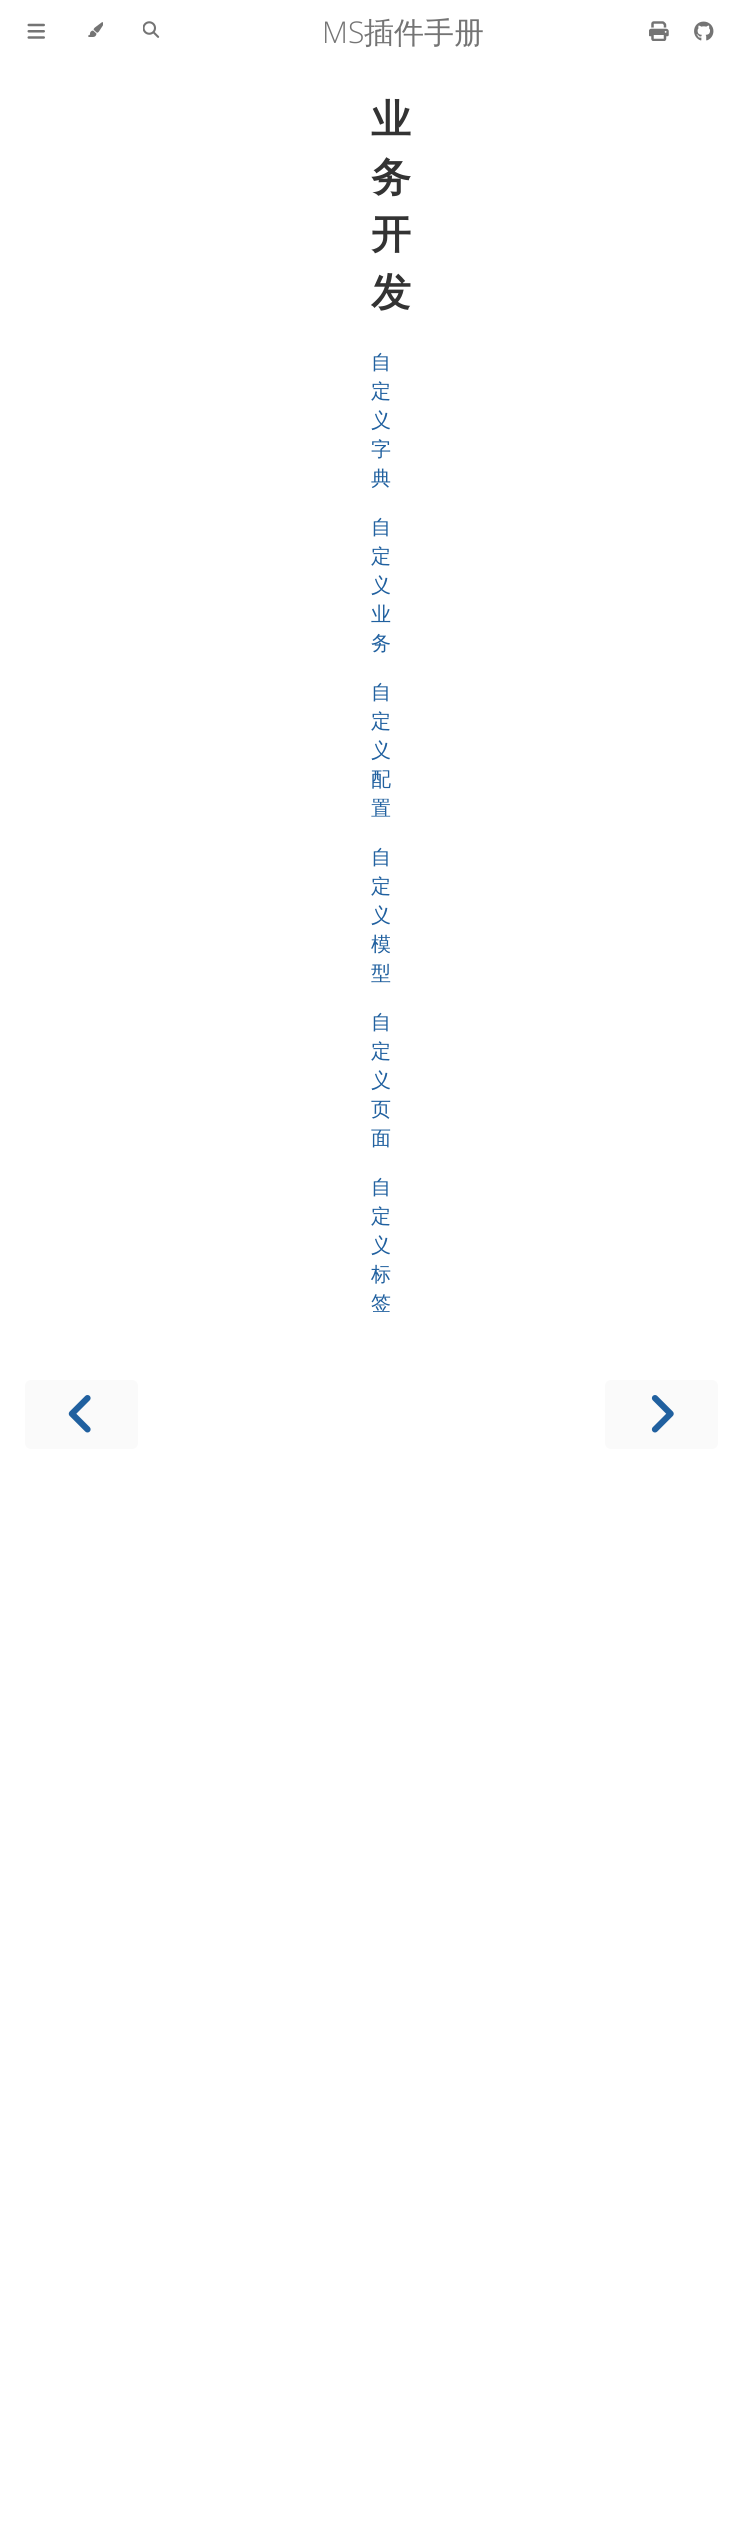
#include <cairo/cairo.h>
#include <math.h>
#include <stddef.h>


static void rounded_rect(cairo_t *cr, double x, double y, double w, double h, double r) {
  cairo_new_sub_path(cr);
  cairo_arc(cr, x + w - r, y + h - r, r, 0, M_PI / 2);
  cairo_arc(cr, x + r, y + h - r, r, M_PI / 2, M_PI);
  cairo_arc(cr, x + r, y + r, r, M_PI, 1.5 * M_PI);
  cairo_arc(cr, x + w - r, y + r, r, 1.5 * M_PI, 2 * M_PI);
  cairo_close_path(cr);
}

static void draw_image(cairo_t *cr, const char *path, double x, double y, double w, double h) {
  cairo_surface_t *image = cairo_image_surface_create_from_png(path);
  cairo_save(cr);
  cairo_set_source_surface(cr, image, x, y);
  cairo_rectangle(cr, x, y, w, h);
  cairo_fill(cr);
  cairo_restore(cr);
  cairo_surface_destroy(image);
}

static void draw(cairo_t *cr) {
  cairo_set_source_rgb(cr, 1, 1, 1);
  cairo_paint(cr);
  draw_image(cr, "images/1.png", 27, 23, 18, 16);
  draw_image(cr, "images/2.png", 88, 22, 15, 15);
  draw_image(cr, "images/3.png", 143, 21, 17, 17);
  draw_image(cr, "images/4.png", 649, 21, 20, 20);
  draw_image(cr, "images/5.png", 694, 21, 20, 20);
  cairo_set_source_rgb(cr, 250 / 255.0, 250 / 255.0, 250 / 255.0);
  rounded_rect(cr, 25, 1380, 113, 69, 6);
  cairo_fill(cr);
  draw_image(cr, "images/6.png", 68, 1395, 23, 38);
  rounded_rect(cr, 605, 1380, 113, 69, 6);
  cairo_fill(cr);
  draw_image(cr, "images/7.png", 651, 1395, 23, 38);
  cairo_select_font_face(cr, "Open Sans Light", CAIRO_FONT_SLANT_NORMAL, CAIRO_FONT_WEIGHT_NORMAL);
  cairo_set_font_size(cr, 30);
  cairo_set_source_rgb(cr, 116 / 255.0, 116 / 255.0, 116 / 255.0);
  cairo_move_to(cr, 322, 43);
  cairo_show_text(cr, "MS");
  cairo_select_font_face(cr, "WenQuanYi Zen Hei Medium", CAIRO_FONT_SLANT_NORMAL, CAIRO_FONT_WEIGHT_NORMAL);
  cairo_move_to(cr, 364, 43);
  cairo_show_text(cr, "插件手册");
  cairo_select_font_face(cr, "WenQuanYi Zen Hei", CAIRO_FONT_SLANT_NORMAL, CAIRO_FONT_WEIGHT_BOLD);
  cairo_set_font_size(cr, 40);
  cairo_set_source_rgb(cr, 51 / 255.0, 51 / 255.0, 51 / 255.0);
  cairo_move_to(cr, 371, 133);
  cairo_show_text(cr, "业");
  cairo_move_to(cr, 371, 191);
  cairo_show_text(cr, "务");
  cairo_move_to(cr, 371, 248);
  cairo_show_text(cr, "开");
  cairo_move_to(cr, 371, 306);
  cairo_show_text(cr, "发");
  cairo_select_font_face(cr, "WenQuanYi Zen Hei Medium", CAIRO_FONT_SLANT_NORMAL, CAIRO_FONT_WEIGHT_NORMAL);
  cairo_set_font_size(cr, 20);
  cairo_set_source_rgb(cr, 32 / 255.0, 96 / 255.0, 159 / 255.0);
  cairo_move_to(cr, 371, 369);
  cairo_show_text(cr, "自");
  cairo_move_to(cr, 371, 398);
  cairo_show_text(cr, "定");
  cairo_move_to(cr, 371, 427);
  cairo_show_text(cr, "义");
  cairo_move_to(cr, 371, 456);
  cairo_show_text(cr, "字");
  cairo_move_to(cr, 371, 485);
  cairo_show_text(cr, "典");
  cairo_move_to(cr, 371, 534);
  cairo_show_text(cr, "自");
  cairo_move_to(cr, 371, 563);
  cairo_show_text(cr, "定");
  cairo_move_to(cr, 371, 592);
  cairo_show_text(cr, "义");
  cairo_move_to(cr, 371, 621);
  cairo_show_text(cr, "业");
  cairo_move_to(cr, 371, 650);
  cairo_show_text(cr, "务");
  cairo_move_to(cr, 371, 699);
  cairo_show_text(cr, "自");
  cairo_move_to(cr, 371, 728);
  cairo_show_text(cr, "定");
  cairo_move_to(cr, 371, 757);
  cairo_show_text(cr, "义");
  cairo_move_to(cr, 371, 786);
  cairo_show_text(cr, "配");
  cairo_move_to(cr, 371, 815);
  cairo_show_text(cr, "置");
  cairo_move_to(cr, 371, 864);
  cairo_show_text(cr, "自");
  cairo_move_to(cr, 371, 893);
  cairo_show_text(cr, "定");
  cairo_move_to(cr, 371, 922);
  cairo_show_text(cr, "义");
  cairo_move_to(cr, 371, 951);
  cairo_show_text(cr, "模");
  cairo_move_to(cr, 371, 980);
  cairo_show_text(cr, "型");
  cairo_move_to(cr, 371, 1029);
  cairo_show_text(cr, "自");
  cairo_move_to(cr, 371, 1058);
  cairo_show_text(cr, "定");
  cairo_move_to(cr, 371, 1087);
  cairo_show_text(cr, "义");
  cairo_move_to(cr, 371, 1116);
  cairo_show_text(cr, "页");
  cairo_move_to(cr, 371, 1145);
  cairo_show_text(cr, "面");
  cairo_move_to(cr, 371, 1194);
  cairo_show_text(cr, "自");
  cairo_move_to(cr, 371, 1223);
  cairo_show_text(cr, "定");
  cairo_move_to(cr, 371, 1252);
  cairo_show_text(cr, "义");
  cairo_move_to(cr, 371, 1281);
  cairo_show_text(cr, "标");
  cairo_move_to(cr, 371, 1310);
  cairo_show_text(cr, "签");
}

int main(void) {
  cairo_surface_t *surface = cairo_image_surface_create(CAIRO_FORMAT_RGB24, 742, 2535);
  cairo_t *cr = cairo_create(surface);
  cairo_font_options_t *options = cairo_font_options_create();
  cairo_font_options_set_hint_metrics(options, CAIRO_HINT_METRICS_OFF);
  cairo_font_options_set_hint_style(options, CAIRO_HINT_STYLE_NONE);
  cairo_set_font_options(cr, options);
  cairo_set_miter_limit(cr, 4);
  draw(cr);
  cairo_surface_write_to_png(surface, "out.png");
  cairo_font_options_destroy(options);
  cairo_destroy(cr);
  cairo_surface_destroy(surface);
  return 0;
}
